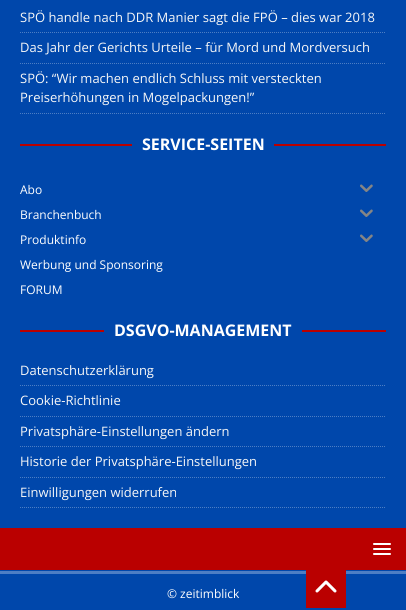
#include <cairo/cairo.h>
#include <math.h>
#include <stddef.h>


static void rounded_rect(cairo_t *cr, double x, double y, double w, double h, double r) {
  cairo_new_sub_path(cr);
  cairo_arc(cr, x + w - r, y + h - r, r, 0, M_PI / 2);
  cairo_arc(cr, x + r, y + h - r, r, M_PI / 2, M_PI);
  cairo_arc(cr, x + r, y + r, r, M_PI, 1.5 * M_PI);
  cairo_arc(cr, x + w - r, y + r, r, 1.5 * M_PI, 2 * M_PI);
  cairo_close_path(cr);
}

static void draw_image(cairo_t *cr, const char *path, double x, double y, double w, double h) {
  cairo_surface_t *image = cairo_image_surface_create_from_png(path);
  cairo_save(cr);
  cairo_set_source_surface(cr, image, x, y);
  cairo_rectangle(cr, x, y, w, h);
  cairo_fill(cr);
  cairo_restore(cr);
  cairo_surface_destroy(image);
}

static void draw(cairo_t *cr) {
  cairo_set_source_rgb(cr, 0, 71 / 255.0, 171 / 255.0);
  cairo_paint(cr);
  cairo_new_path(cr);
  cairo_move_to(cr, 20, 32.5);
  cairo_line_to(cr, 386, 32.5);
  cairo_set_source_rgb(cr, 77 / 255.0, 126 / 255.0, 196 / 255.0);
  cairo_set_line_width(cr, 1);
  cairo_set_dash(cr, (double[]){1, 1}, 2, 0);
  cairo_stroke(cr);
  cairo_new_path(cr);
  cairo_move_to(cr, 20, 63.5);
  cairo_line_to(cr, 386, 63.5);
  cairo_stroke(cr);
  cairo_new_path(cr);
  cairo_move_to(cr, 20, 113.5);
  cairo_line_to(cr, 386, 113.5);
  cairo_stroke(cr);
  cairo_set_source_rgb(cr, 186 / 255.0, 0, 0);
  cairo_rectangle(cr, 20, 144, 366, 2);
  cairo_fill(cr);
  cairo_set_source_rgb(cr, 0, 71 / 255.0, 171 / 255.0);
  cairo_rectangle(cr, 132, 144, 142, 2);
  cairo_fill(cr);
  draw_image(cr, "images/1.png", 360, 184, 13, 8);
  draw_image(cr, "images/1.png", 360, 209, 13, 8);
  draw_image(cr, "images/1.png", 360, 234, 13, 8);
  cairo_set_source_rgb(cr, 186 / 255.0, 0, 0);
  cairo_rectangle(cr, 20, 330, 366, 2);
  cairo_fill(cr);
  cairo_set_source_rgb(cr, 0, 71 / 255.0, 171 / 255.0);
  cairo_rectangle(cr, 104, 330, 198, 2);
  cairo_fill(cr);
  cairo_new_path(cr);
  cairo_move_to(cr, 20, 385.5);
  cairo_line_to(cr, 386, 385.5);
  cairo_set_source_rgb(cr, 77 / 255.0, 126 / 255.0, 196 / 255.0);
  cairo_stroke(cr);
  cairo_new_path(cr);
  cairo_move_to(cr, 20, 416.5);
  cairo_line_to(cr, 386, 416.5);
  cairo_stroke(cr);
  cairo_new_path(cr);
  cairo_move_to(cr, 20, 446.5);
  cairo_line_to(cr, 386, 446.5);
  cairo_stroke(cr);
  cairo_new_path(cr);
  cairo_move_to(cr, 20, 477.5);
  cairo_line_to(cr, 386, 477.5);
  cairo_stroke(cr);
  cairo_new_path(cr);
  cairo_move_to(cr, 20, 507.5);
  cairo_line_to(cr, 386, 507.5);
  cairo_stroke(cr);
  cairo_set_source_rgb(cr, 186 / 255.0, 0, 0);
  cairo_rectangle(cr, 0, 528, 406, 42);
  cairo_fill(cr);
  cairo_set_source_rgb(cr, 1, 1, 1);
  rounded_rect(cr, 373, 543, 18, 2, 1);
  cairo_fill(cr);
  rounded_rect(cr, 373, 548, 18, 2, 1);
  cairo_fill(cr);
  rounded_rect(cr, 373, 553, 18, 2, 1);
  cairo_fill(cr);
  cairo_set_source_rgb(cr, 77 / 255.0, 126 / 255.0, 196 / 255.0);
  cairo_rectangle(cr, 0, 571, 406, 3);
  cairo_fill(cr);
  cairo_set_source_rgb(cr, 186 / 255.0, 0, 0);
  cairo_rectangle(cr, 306, 570, 40, 38);
  cairo_fill(cr);
  draw_image(cr, "images/2.png", 315, 580, 22, 13);
  cairo_select_font_face(cr, "Open Sans", CAIRO_FONT_SLANT_NORMAL, CAIRO_FONT_WEIGHT_NORMAL);
  cairo_set_font_size(cr, 13);
  cairo_set_source_rgb(cr, 247 / 255.0, 247 / 255.0, 247 / 255.0);
  cairo_move_to(cr, 20, 22);
  cairo_show_text(cr, "SPÖ handle nach DDR Manier sagt die FPÖ – dies war 2018");
  cairo_move_to(cr, 20, 52);
  cairo_show_text(cr, "Das Jahr der Gerichts Urteile – für Mord und Mordversuch");
  cairo_move_to(cr, 20, 83);
  cairo_show_text(cr, "SPÖ: “Wir machen endlich Schluss mit versteckten");
  cairo_move_to(cr, 20, 102);
  cairo_show_text(cr, "Preiserhöhungen in Mogelpackungen!”");
  cairo_select_font_face(cr, "Open Sans", CAIRO_FONT_SLANT_NORMAL, CAIRO_FONT_WEIGHT_BOLD);
  cairo_set_font_size(cr, 16);
  cairo_set_source_rgb(cr, 1, 1, 1);
  cairo_move_to(cr, 142, 150);
  cairo_show_text(cr, "SERVICE-SEITEN");
  cairo_select_font_face(cr, "Open Sans", CAIRO_FONT_SLANT_NORMAL, CAIRO_FONT_WEIGHT_NORMAL);
  cairo_set_font_size(cr, 12);
  cairo_move_to(cr, 20, 194);
  cairo_show_text(cr, "Abo");
  cairo_move_to(cr, 20, 219);
  cairo_show_text(cr, "Branchenbuch");
  cairo_move_to(cr, 20, 244);
  cairo_show_text(cr, "Produktinfo");
  cairo_move_to(cr, 20, 269);
  cairo_show_text(cr, "Werbung und Sponsoring");
  cairo_move_to(cr, 20, 294);
  cairo_show_text(cr, "FORUM");
  cairo_select_font_face(cr, "Open Sans", CAIRO_FONT_SLANT_NORMAL, CAIRO_FONT_WEIGHT_BOLD);
  cairo_set_font_size(cr, 16);
  cairo_move_to(cr, 114, 336);
  cairo_show_text(cr, "DSGVO-MANAGEMENT");
  cairo_select_font_face(cr, "Open Sans", CAIRO_FONT_SLANT_NORMAL, CAIRO_FONT_WEIGHT_NORMAL);
  cairo_set_font_size(cr, 13);
  cairo_set_source_rgb(cr, 247 / 255.0, 247 / 255.0, 247 / 255.0);
  cairo_move_to(cr, 20, 375);
  cairo_show_text(cr, "Datenschutzerklärung");
  cairo_move_to(cr, 20, 405);
  cairo_show_text(cr, "Cookie-Richtlinie");
  cairo_move_to(cr, 20, 436);
  cairo_show_text(cr, "Privatsphäre-Einstellungen ändern");
  cairo_move_to(cr, 20, 466);
  cairo_show_text(cr, "Historie der Privatsphäre-Einstellungen");
  cairo_move_to(cr, 20, 497);
  cairo_show_text(cr, "Einwilligungen widerrufen");
  cairo_set_font_size(cr, 12);
  cairo_set_source_rgb(cr, 1, 1, 1);
  cairo_move_to(cr, 167, 598);
  cairo_show_text(cr, "© zeitimblick");
}

int main(void) {
  cairo_surface_t *surface = cairo_image_surface_create(CAIRO_FORMAT_RGB24, 406, 610);
  cairo_t *cr = cairo_create(surface);
  cairo_font_options_t *options = cairo_font_options_create();
  cairo_font_options_set_hint_metrics(options, CAIRO_HINT_METRICS_OFF);
  cairo_font_options_set_hint_style(options, CAIRO_HINT_STYLE_NONE);
  cairo_set_font_options(cr, options);
  cairo_set_miter_limit(cr, 4);
  draw(cr);
  cairo_surface_write_to_png(surface, "out.png");
  cairo_font_options_destroy(options);
  cairo_destroy(cr);
  cairo_surface_destroy(surface);
  return 0;
}
